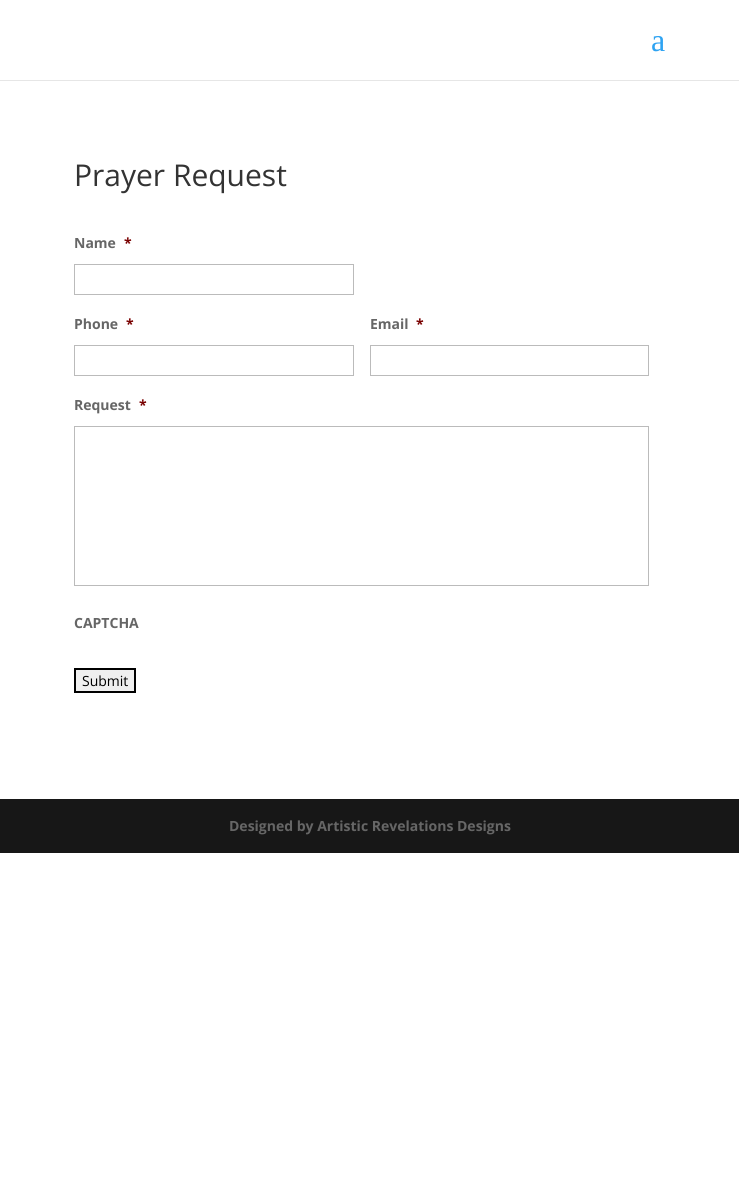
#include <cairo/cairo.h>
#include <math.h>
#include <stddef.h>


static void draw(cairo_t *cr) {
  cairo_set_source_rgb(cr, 1, 1, 1);
  cairo_paint(cr);
  cairo_set_source_rgb(cr, 230 / 255.0, 230 / 255.0, 230 / 255.0);
  cairo_rectangle(cr, 0, 80, 739, 1);
  cairo_fill(cr);
  cairo_rectangle(cr, 74.5, 264.5, 279, 30);
  cairo_set_source_rgb(cr, 187 / 255.0, 187 / 255.0, 187 / 255.0);
  cairo_set_line_width(cr, 1);
  cairo_stroke(cr);
  cairo_rectangle(cr, 74.5, 345.5, 279, 30);
  cairo_stroke(cr);
  cairo_rectangle(cr, 370.5, 345.5, 278, 30);
  cairo_stroke(cr);
  cairo_rectangle(cr, 74.5, 426.5, 574, 159);
  cairo_stroke(cr);
  cairo_set_source_rgb(cr, 239 / 255.0, 239 / 255.0, 239 / 255.0);
  cairo_rectangle(cr, 75, 669, 60, 23);
  cairo_fill_preserve(cr);
  cairo_set_source_rgb(cr, 0, 0, 0);
  cairo_set_line_width(cr, 2);
  cairo_stroke(cr);
  cairo_set_source_rgb(cr, 23 / 255.0, 23 / 255.0, 23 / 255.0);
  cairo_rectangle(cr, 0, 799, 739, 54);
  cairo_fill(cr);
  cairo_select_font_face(cr, "Liberation Serif", CAIRO_FONT_SLANT_NORMAL, CAIRO_FONT_WEIGHT_NORMAL);
  cairo_set_font_size(cr, 32);
  cairo_set_source_rgb(cr, 46 / 255.0, 163 / 255.0, 242 / 255.0);
  cairo_move_to(cr, 651, 51);
  cairo_show_text(cr, "a");
  cairo_select_font_face(cr, "Open Sans", CAIRO_FONT_SLANT_NORMAL, CAIRO_FONT_WEIGHT_NORMAL);
  cairo_set_font_size(cr, 30);
  cairo_set_source_rgb(cr, 51 / 255.0, 51 / 255.0, 51 / 255.0);
  cairo_move_to(cr, 74, 186);
  cairo_show_text(cr, "Prayer Request");
  cairo_select_font_face(cr, "Open Sans", CAIRO_FONT_SLANT_NORMAL, CAIRO_FONT_WEIGHT_BOLD);
  cairo_set_font_size(cr, 14);
  cairo_set_source_rgb(cr, 102 / 255.0, 102 / 255.0, 102 / 255.0);
  cairo_move_to(cr, 74, 248);
  cairo_show_text(cr, "Name");
  cairo_set_source_rgb(cr, 121 / 255.0, 0, 0);
  cairo_move_to(cr, 124, 248);
  cairo_show_text(cr, "*");
  cairo_set_source_rgb(cr, 102 / 255.0, 102 / 255.0, 102 / 255.0);
  cairo_move_to(cr, 74, 329);
  cairo_show_text(cr, "Phone");
  cairo_set_source_rgb(cr, 121 / 255.0, 0, 0);
  cairo_move_to(cr, 126, 329);
  cairo_show_text(cr, "*");
  cairo_set_source_rgb(cr, 102 / 255.0, 102 / 255.0, 102 / 255.0);
  cairo_move_to(cr, 370, 329);
  cairo_show_text(cr, "Email");
  cairo_set_source_rgb(cr, 121 / 255.0, 0, 0);
  cairo_move_to(cr, 416, 329);
  cairo_show_text(cr, "*");
  cairo_set_source_rgb(cr, 102 / 255.0, 102 / 255.0, 102 / 255.0);
  cairo_move_to(cr, 74, 410);
  cairo_show_text(cr, "Request");
  cairo_set_source_rgb(cr, 121 / 255.0, 0, 0);
  cairo_move_to(cr, 139, 410);
  cairo_show_text(cr, "*");
  cairo_set_source_rgb(cr, 102 / 255.0, 102 / 255.0, 102 / 255.0);
  cairo_move_to(cr, 74, 628);
  cairo_show_text(cr, "CAPTCHA");
  cairo_select_font_face(cr, "Open Sans", CAIRO_FONT_SLANT_NORMAL, CAIRO_FONT_WEIGHT_NORMAL);
  cairo_set_source_rgb(cr, 0, 0, 0);
  cairo_move_to(cr, 82, 686);
  cairo_show_text(cr, "Submit");
  cairo_select_font_face(cr, "Open Sans", CAIRO_FONT_SLANT_NORMAL, CAIRO_FONT_WEIGHT_BOLD);
  cairo_set_source_rgb(cr, 102 / 255.0, 102 / 255.0, 102 / 255.0);
  cairo_move_to(cr, 229, 831);
  cairo_show_text(cr, "Designed by Artistic Revelations Designs");
}

int main(void) {
  cairo_surface_t *surface = cairo_image_surface_create(CAIRO_FORMAT_RGB24, 739, 1181);
  cairo_t *cr = cairo_create(surface);
  cairo_font_options_t *options = cairo_font_options_create();
  cairo_font_options_set_hint_metrics(options, CAIRO_HINT_METRICS_OFF);
  cairo_font_options_set_hint_style(options, CAIRO_HINT_STYLE_NONE);
  cairo_set_font_options(cr, options);
  cairo_set_miter_limit(cr, 4);
  draw(cr);
  cairo_surface_write_to_png(surface, "out.png");
  cairo_font_options_destroy(options);
  cairo_destroy(cr);
  cairo_surface_destroy(surface);
  return 0;
}
